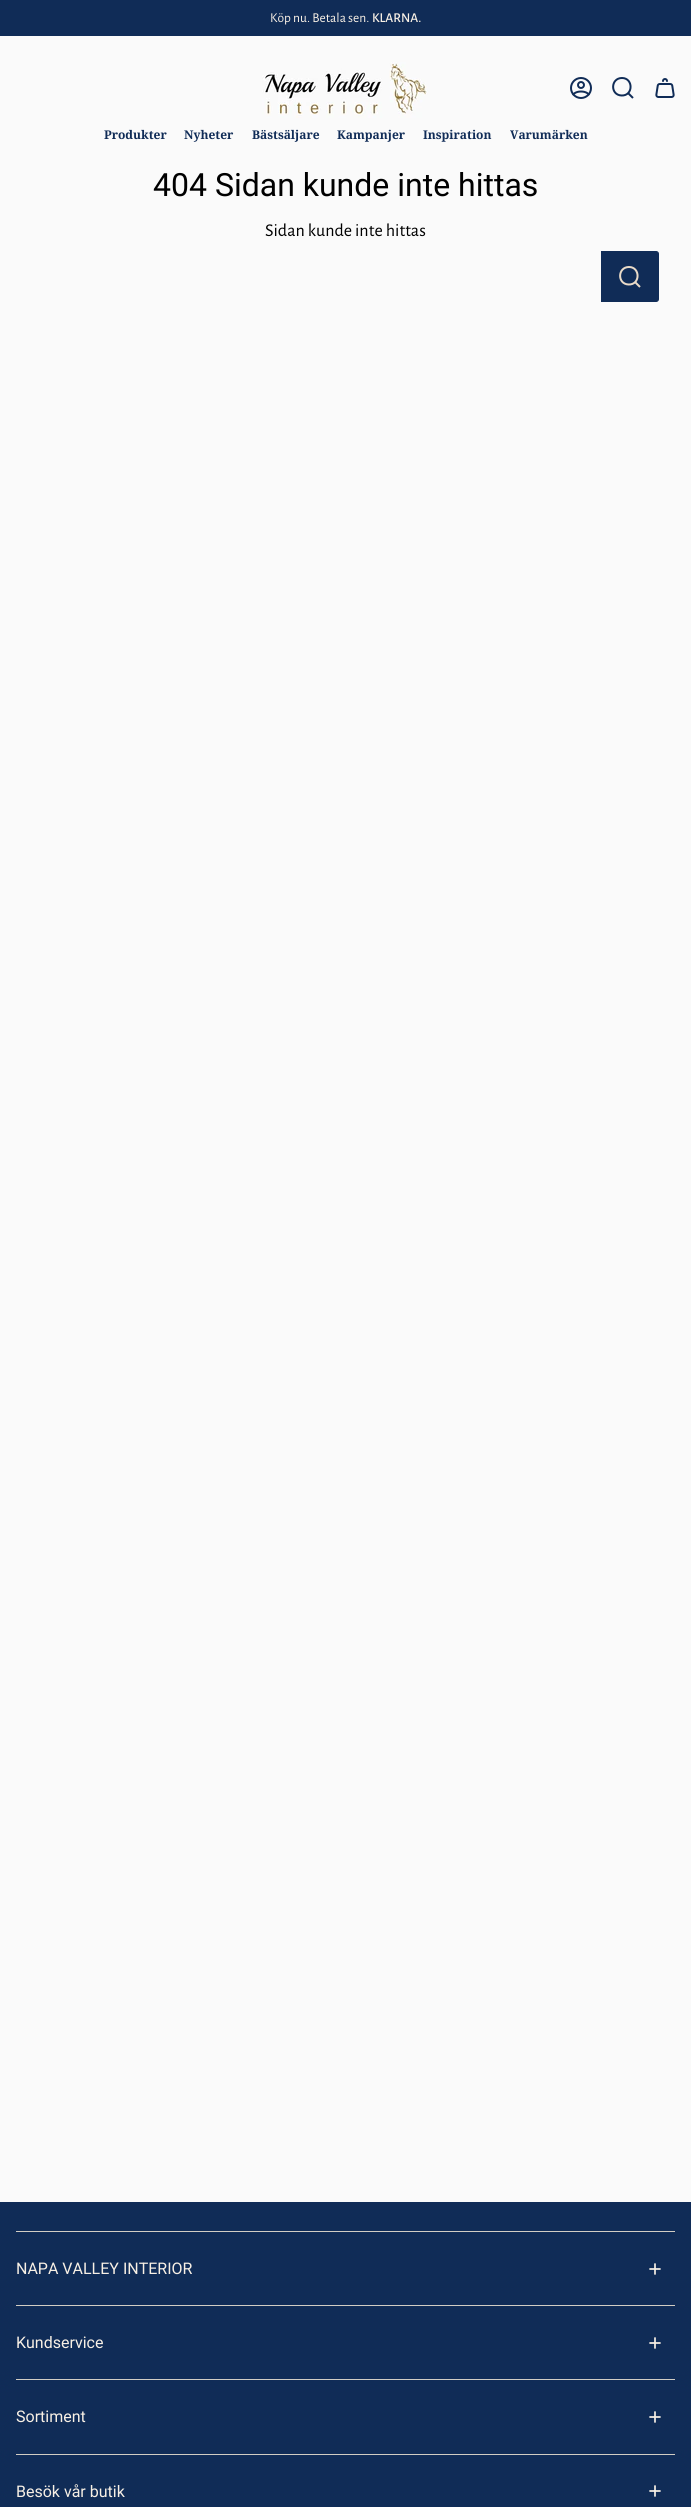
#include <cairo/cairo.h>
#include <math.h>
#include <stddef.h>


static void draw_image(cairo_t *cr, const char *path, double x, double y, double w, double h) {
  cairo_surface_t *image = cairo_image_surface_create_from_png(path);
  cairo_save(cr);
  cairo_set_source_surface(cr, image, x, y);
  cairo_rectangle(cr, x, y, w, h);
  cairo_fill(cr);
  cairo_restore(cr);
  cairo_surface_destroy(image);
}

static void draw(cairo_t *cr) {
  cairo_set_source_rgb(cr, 250 / 255.0, 250 / 255.0, 250 / 255.0);
  cairo_paint(cr);
  cairo_set_source_rgb(cr, 16 / 255.0, 44 / 255.0, 87 / 255.0);
  cairo_rectangle(cr, 0, 0, 691, 36);
  cairo_fill(cr);
  draw_image(cr, "images/1.png", 262, 62, 166, 56);
  draw_image(cr, "images/2.png", 570, 77, 22, 22);
  cairo_new_path(cr);
  cairo_move_to(cr, 622, 78);
  cairo_curve_to(cr, 633.5, 78, 633.5, 96, 621.5, 95.5);
  cairo_curve_to(cr, 610, 95, 610.5, 78, 622, 78);
  cairo_close_path(cr);
  cairo_move_to(cr, 628, 93);
  cairo_line_to(cr, 633, 98);
  cairo_stroke(cr);
  draw_image(cr, "images/3.png", 655, 78, 20, 20);
  cairo_new_path(cr);
  cairo_move_to(cr, 601.5, 251.5);
  cairo_line_to(cr, 656, 251.5);
  cairo_curve_to(cr, 657.5, 251.5, 658.5, 252.5, 658.5, 254);
  cairo_line_to(cr, 658.5, 299);
  cairo_curve_to(cr, 658.5, 300.5, 657.5, 301.5, 656, 301.5);
  cairo_line_to(cr, 601.5, 301.5);
  cairo_close_path(cr);
  cairo_fill_preserve(cr);
  cairo_set_line_width(cr, 1);
  cairo_stroke(cr);
  cairo_new_path(cr);
  cairo_move_to(cr, 629, 267);
  cairo_curve_to(cr, 640.5, 267, 640.5, 285, 628.5, 284.5);
  cairo_curve_to(cr, 617, 284, 617.5, 267, 629, 267);
  cairo_close_path(cr);
  cairo_move_to(cr, 635, 282);
  cairo_line_to(cr, 640, 287);
  cairo_set_source_rgb(cr, 234 / 255.0, 219 / 255.0, 200 / 255.0);
  cairo_set_line_width(cr, 2);
  cairo_stroke(cr);
  cairo_set_source_rgb(cr, 16 / 255.0, 44 / 255.0, 87 / 255.0);
  cairo_rectangle(cr, 0, 2202, 691, 305);
  cairo_fill(cr);
  cairo_set_source_rgb(cr, 209 / 255.0, 205 / 255.0, 196 / 255.0);
  cairo_rectangle(cr, 16, 2231, 659, 1);
  cairo_fill(cr);
  cairo_rectangle(cr, 16, 2305, 659, 1);
  cairo_fill(cr);
  draw_image(cr, "images/4.png", 649, 2263, 12, 12);
  cairo_rectangle(cr, 16, 2379, 659, 1);
  cairo_fill(cr);
  draw_image(cr, "images/4.png", 649, 2337, 12, 12);
  cairo_rectangle(cr, 16, 2454, 659, 1);
  cairo_fill(cr);
  draw_image(cr, "images/4.png", 649, 2411, 12, 12);
  draw_image(cr, "images/4.png", 649, 2485, 12, 12);
  cairo_select_font_face(cr, "Alegreya Sans", CAIRO_FONT_SLANT_NORMAL, CAIRO_FONT_WEIGHT_NORMAL);
  cairo_set_font_size(cr, 13.5);
  cairo_set_source_rgb(cr, 248 / 255.0, 240 / 255.0, 229 / 255.0);
  cairo_move_to(cr, 270, 22);
  cairo_show_text(cr, "Köp nu. Betala sen.");
  cairo_select_font_face(cr, "Alegreya Sans Medium", CAIRO_FONT_SLANT_NORMAL, CAIRO_FONT_WEIGHT_NORMAL);
  cairo_move_to(cr, 372, 22);
  cairo_show_text(cr, "KLARNA.");
  cairo_select_font_face(cr, "Noto Serif", CAIRO_FONT_SLANT_NORMAL, CAIRO_FONT_WEIGHT_BOLD);
  cairo_set_font_size(cr, 12);
  cairo_set_source_rgb(cr, 16 / 255.0, 44 / 255.0, 87 / 255.0);
  cairo_move_to(cr, 104, 139);
  cairo_show_text(cr, "Produkter");
  cairo_move_to(cr, 184, 139);
  cairo_show_text(cr, "Nyheter");
  cairo_move_to(cr, 252, 139);
  cairo_show_text(cr, "Bästsäljare");
  cairo_move_to(cr, 337, 139);
  cairo_show_text(cr, "Kampanjer");
  cairo_move_to(cr, 423, 139);
  cairo_show_text(cr, "Inspiration");
  cairo_move_to(cr, 510, 139);
  cairo_show_text(cr, "Varumärken");
  cairo_select_font_face(cr, "Roboto", CAIRO_FONT_SLANT_NORMAL, CAIRO_FONT_WEIGHT_NORMAL);
  cairo_set_font_size(cr, 32);
  cairo_set_source_rgb(cr, 0, 0, 0);
  cairo_move_to(cr, 153, 196);
  cairo_show_text(cr, "404 Sidan kunde inte hittas");
  cairo_select_font_face(cr, "Alegreya Sans", CAIRO_FONT_SLANT_NORMAL, CAIRO_FONT_WEIGHT_NORMAL);
  cairo_set_font_size(cr, 18);
  cairo_move_to(cr, 265, 236);
  cairo_show_text(cr, "Sidan kunde inte hittas");
  cairo_select_font_face(cr, "Roboto", CAIRO_FONT_SLANT_NORMAL, CAIRO_FONT_WEIGHT_NORMAL);
  cairo_set_font_size(cr, 16);
  cairo_set_source_rgb(cr, 248 / 255.0, 240 / 255.0, 229 / 255.0);
  cairo_move_to(cr, 16, 2274);
  cairo_show_text(cr, "NAPA VALLEY INTERIOR");
  cairo_move_to(cr, 16, 2348);
  cairo_show_text(cr, "Kundservice");
  cairo_move_to(cr, 16, 2422);
  cairo_show_text(cr, "Sortiment");
  cairo_move_to(cr, 16, 2497);
  cairo_show_text(cr, "Besök vår butik");
}

int main(void) {
  cairo_surface_t *surface = cairo_image_surface_create(CAIRO_FORMAT_RGB24, 691, 2507);
  cairo_t *cr = cairo_create(surface);
  cairo_font_options_t *options = cairo_font_options_create();
  cairo_font_options_set_hint_metrics(options, CAIRO_HINT_METRICS_OFF);
  cairo_font_options_set_hint_style(options, CAIRO_HINT_STYLE_NONE);
  cairo_set_font_options(cr, options);
  cairo_set_miter_limit(cr, 4);
  draw(cr);
  cairo_surface_write_to_png(surface, "out.png");
  cairo_font_options_destroy(options);
  cairo_destroy(cr);
  cairo_surface_destroy(surface);
  return 0;
}
